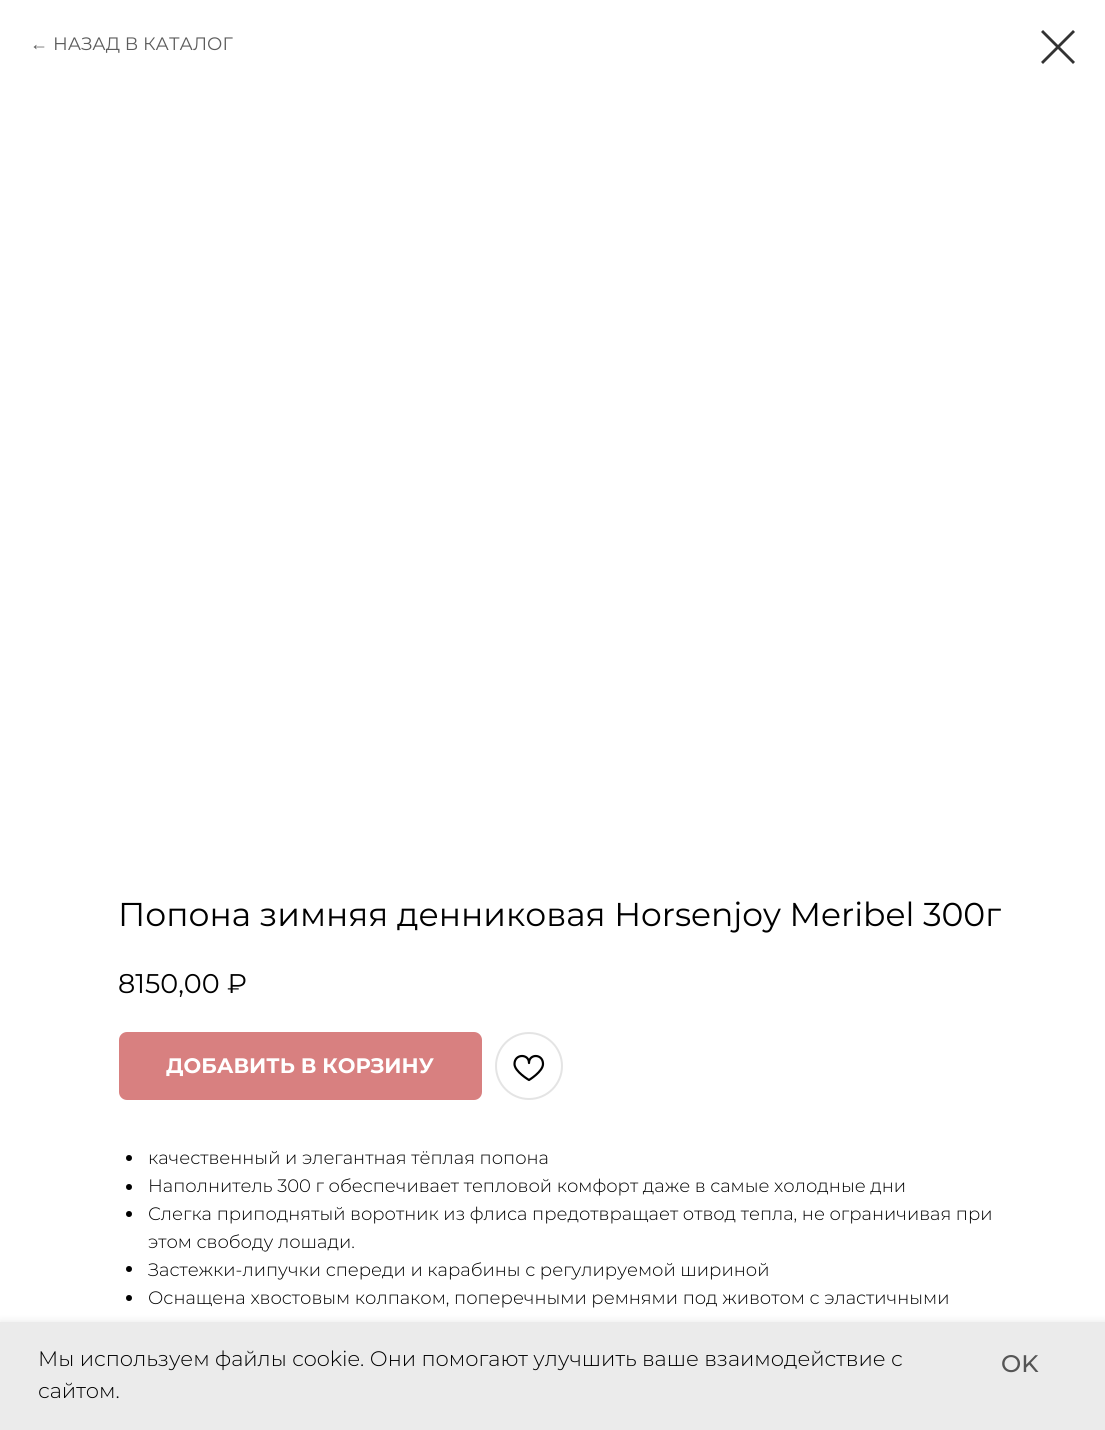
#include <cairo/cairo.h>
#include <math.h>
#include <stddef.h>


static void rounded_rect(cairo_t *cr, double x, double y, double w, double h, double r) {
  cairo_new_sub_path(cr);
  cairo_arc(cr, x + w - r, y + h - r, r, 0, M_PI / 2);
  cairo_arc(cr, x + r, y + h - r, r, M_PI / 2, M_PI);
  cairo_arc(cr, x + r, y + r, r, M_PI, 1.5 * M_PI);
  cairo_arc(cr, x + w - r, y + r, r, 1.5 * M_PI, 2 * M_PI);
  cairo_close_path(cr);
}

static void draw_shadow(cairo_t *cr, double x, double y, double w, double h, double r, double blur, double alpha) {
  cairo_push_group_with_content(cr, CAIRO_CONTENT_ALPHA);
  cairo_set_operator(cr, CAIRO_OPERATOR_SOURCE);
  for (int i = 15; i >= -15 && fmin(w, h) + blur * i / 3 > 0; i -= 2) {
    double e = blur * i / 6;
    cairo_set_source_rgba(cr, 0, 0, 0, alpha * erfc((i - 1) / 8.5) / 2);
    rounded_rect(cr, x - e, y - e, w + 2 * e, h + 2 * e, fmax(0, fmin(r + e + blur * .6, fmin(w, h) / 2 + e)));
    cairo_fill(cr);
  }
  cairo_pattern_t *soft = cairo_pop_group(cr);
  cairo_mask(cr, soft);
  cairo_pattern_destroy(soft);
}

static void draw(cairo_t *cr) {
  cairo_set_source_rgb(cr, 1, 1, 1);
  cairo_paint(cr);
  cairo_set_source_rgb(cr, 51 / 255.0, 51 / 255.0, 51 / 255.0);
  cairo_set_fill_rule(cr, CAIRO_FILL_RULE_EVEN_ODD);
  cairo_new_path(cr);
  cairo_move_to(cr, 1041, 32);
  cairo_line_to(cr, 1043, 30);
  cairo_line_to(cr, 1075, 62);
  cairo_line_to(cr, 1073, 64);
  cairo_close_path(cr);
  cairo_fill(cr);
  cairo_new_path(cr);
  cairo_move_to(cr, 1073, 30);
  cairo_line_to(cr, 1075, 32);
  cairo_line_to(cr, 1043, 64);
  cairo_line_to(cr, 1041, 62);
  cairo_close_path(cr);
  cairo_fill(cr);
  cairo_set_source_rgb(cr, 216 / 255.0, 128 / 255.0, 128 / 255.0);
  rounded_rect(cr, 119, 1032, 363, 68, 8);
  cairo_fill(cr);
  cairo_arc(cr, 529, 1066, 33, 0, 2 * M_PI);
  cairo_set_source_rgb(cr, 228 / 255.0, 228 / 255.0, 228 / 255.0);
  cairo_stroke(cr);
  cairo_new_path(cr);
  cairo_move_to(cr, 543, 1064);
  cairo_curve_to(cr, 543, 1071.5, 529, 1080, 529, 1080);
  cairo_curve_to(cr, 529, 1080, 514.5, 1071.5, 514.5, 1064);
  cairo_curve_to(cr, 514.5, 1053.5, 529, 1053.5, 529, 1063);
  cairo_curve_to(cr, 529, 1053.5, 543, 1053.5, 543, 1064);
  cairo_close_path(cr);
  cairo_set_source_rgb(cr, 0, 0, 0);
  cairo_set_line_width(cr, 2.2);
  cairo_set_line_join(cr, CAIRO_LINE_JOIN_ROUND);
  cairo_stroke(cr);
  cairo_arc(cr, 129, 1158, 3, 0, 2 * M_PI);
  cairo_fill(cr);
  cairo_arc(cr, 129, 1187, 3, 0, 2 * M_PI);
  cairo_fill(cr);
  cairo_arc(cr, 129, 1214, 3, 0, 2 * M_PI);
  cairo_fill(cr);
  cairo_arc(cr, 129, 1269, 3, 0, 2 * M_PI);
  cairo_fill(cr);
  cairo_arc(cr, 129, 1298, 3, 0, 2 * M_PI);
  cairo_fill(cr);
  cairo_set_source_rgb(cr, 0, 0, 0);
  draw_shadow(cr, 0, 1322, 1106, 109, 0, 4, 0.1);
  cairo_set_source_rgb(cr, 235 / 255.0, 235 / 255.0, 235 / 255.0);
  cairo_rectangle(cr, 0, 1322, 1105, 108);
  cairo_fill(cr);
  cairo_select_font_face(cr, "Liberation Sans", CAIRO_FONT_SLANT_NORMAL, CAIRO_FONT_WEIGHT_NORMAL);
  cairo_set_font_size(cr, 18);
  cairo_set_source_rgb(cr, 92 / 255.0, 92 / 255.0, 92 / 255.0);
  cairo_move_to(cr, 30, 50);
  cairo_show_text(cr, "←");
  cairo_select_font_face(cr, "Montserrat", CAIRO_FONT_SLANT_NORMAL, CAIRO_FONT_WEIGHT_NORMAL);
  cairo_move_to(cr, 53, 50);
  cairo_show_text(cr, "НАЗАД В КАТАЛОГ");
  cairo_set_font_size(cr, 33);
  cairo_set_source_rgb(cr, 0, 0, 0);
  cairo_move_to(cr, 118, 926);
  cairo_show_text(cr, "Попона зимняя денниковая Horsenjoy Meribel 300г");
  cairo_set_font_size(cr, 27);
  cairo_move_to(cr, 118, 993);
  cairo_show_text(cr, "8150,00");
  cairo_move_to(cr, 227, 993);
  cairo_show_text(cr, "₽");
  cairo_select_font_face(cr, "Montserrat", CAIRO_FONT_SLANT_NORMAL, CAIRO_FONT_WEIGHT_BOLD);
  cairo_set_font_size(cr, 21);
  cairo_set_source_rgb(cr, 1, 1, 1);
  cairo_move_to(cr, 166, 1073);
  cairo_show_text(cr, "ДОБАВИТЬ В КОРЗИНУ");
  cairo_select_font_face(cr, "Montserrat Light", CAIRO_FONT_SLANT_NORMAL, CAIRO_FONT_WEIGHT_NORMAL);
  cairo_set_font_size(cr, 18);
  cairo_set_source_rgb(cr, 0, 0, 0);
  cairo_move_to(cr, 148, 1164);
  cairo_show_text(cr, "качественный и элегантная тёплая попона");
  cairo_move_to(cr, 148, 1192);
  cairo_show_text(cr, "Наполнитель 300 г обеспечивает тепловой комфорт даже в самые холодные дни");
  cairo_move_to(cr, 148, 1220);
  cairo_show_text(cr, "Слегка приподнятый воротник из флиса предотвращает отвод тепла, не ограничивая при");
  cairo_move_to(cr, 148, 1248);
  cairo_show_text(cr, "этом свободу лошади.");
  cairo_move_to(cr, 148, 1276);
  cairo_show_text(cr, "Застежки-липучки спереди и карабины с регулируемой шириной");
  cairo_move_to(cr, 148, 1304);
  cairo_show_text(cr, "Оснащена хвостовым колпаком, поперечными ремнями под животом с эластичными");
  cairo_set_font_size(cr, 21);
  cairo_move_to(cr, 38, 1366);
  cairo_show_text(cr, "Мы используем файлы cookie. Они помогают улучшить ваше взаимодействие с");
  cairo_move_to(cr, 38, 1398);
  cairo_show_text(cr, "сайтом.");
  cairo_select_font_face(cr, "Montserrat Medium", CAIRO_FONT_SLANT_NORMAL, CAIRO_FONT_WEIGHT_NORMAL);
  cairo_set_font_size(cr, 24);
  cairo_set_source_rgb(cr, 85 / 255.0, 85 / 255.0, 85 / 255.0);
  cairo_move_to(cr, 1001, 1372);
  cairo_show_text(cr, "OK");
}

int main(void) {
  cairo_surface_t *surface = cairo_image_surface_create(CAIRO_FORMAT_RGB24, 1105, 1430);
  cairo_t *cr = cairo_create(surface);
  cairo_font_options_t *options = cairo_font_options_create();
  cairo_font_options_set_hint_metrics(options, CAIRO_HINT_METRICS_OFF);
  cairo_font_options_set_hint_style(options, CAIRO_HINT_STYLE_NONE);
  cairo_set_font_options(cr, options);
  cairo_set_miter_limit(cr, 4);
  draw(cr);
  cairo_surface_write_to_png(surface, "out.png");
  cairo_font_options_destroy(options);
  cairo_destroy(cr);
  cairo_surface_destroy(surface);
  return 0;
}
